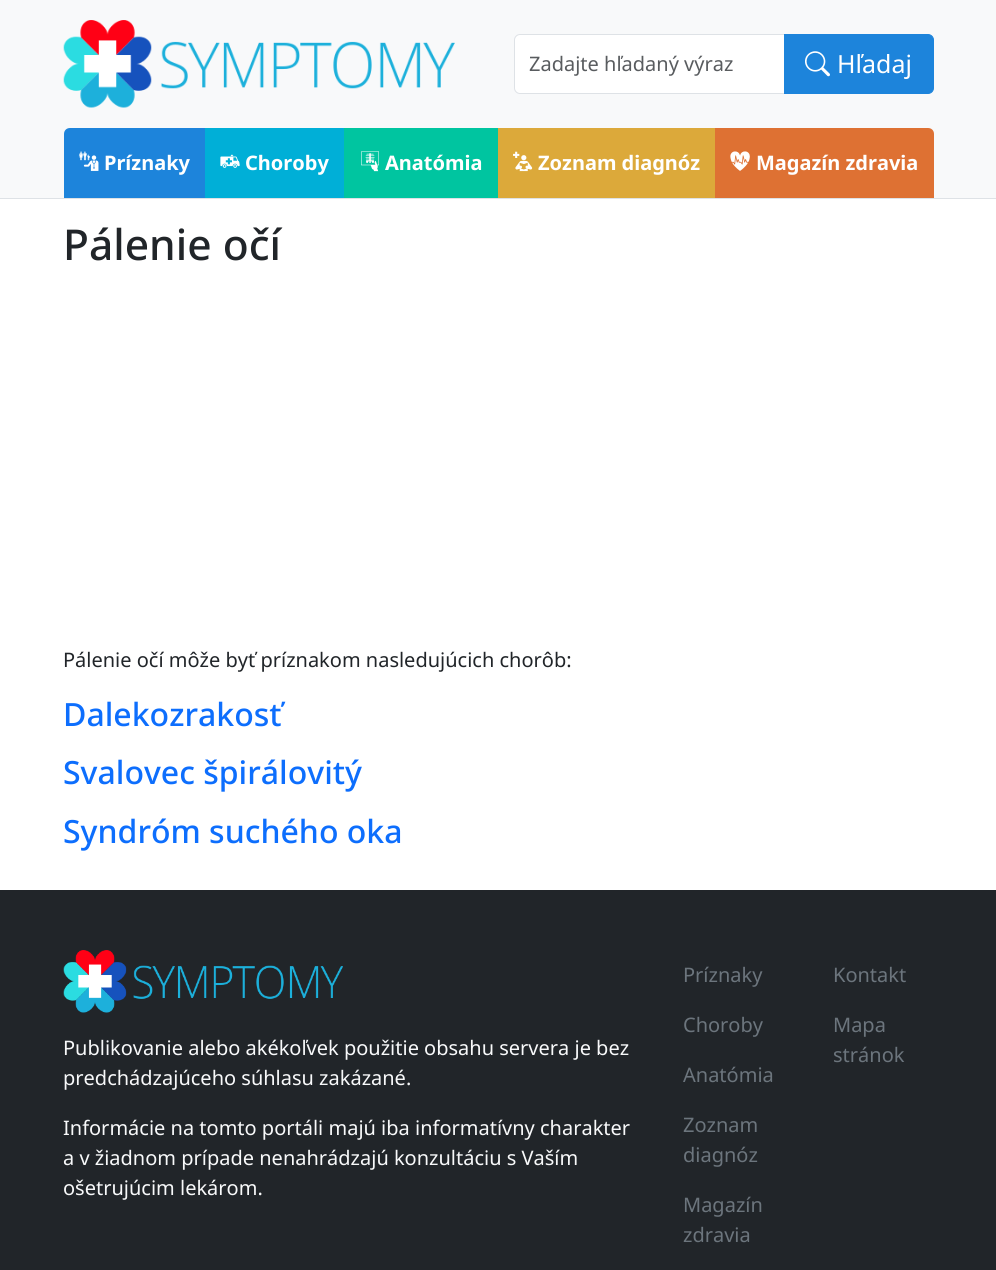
#include <cairo/cairo.h>
#include <math.h>
#include <stddef.h>


static void draw_image(cairo_t *cr, const char *path, double x, double y, double w, double h) {
  cairo_surface_t *image = cairo_image_surface_create_from_png(path);
  cairo_save(cr);
  cairo_set_source_surface(cr, image, x, y);
  cairo_rectangle(cr, x, y, w, h);
  cairo_fill(cr);
  cairo_restore(cr);
  cairo_surface_destroy(image);
}

static void draw(cairo_t *cr) {
  cairo_set_source_rgb(cr, 1, 1, 1);
  cairo_paint(cr);
  cairo_set_source_rgb(cr, 248 / 255.0, 249 / 255.0, 250 / 255.0);
  cairo_rectangle(cr, 0, 0, 996, 198);
  cairo_fill(cr);
  cairo_set_source_rgb(cr, 222 / 255.0, 226 / 255.0, 230 / 255.0);
  cairo_rectangle(cr, 0, 198, 996, 1);
  cairo_fill(cr);
  draw_image(cr, "images/1.png", 63, 20, 392, 88);
  cairo_set_source_rgb(cr, 1, 1, 1);
  cairo_new_path(cr);
  cairo_move_to(cr, 520, 34.5);
  cairo_line_to(cr, 784.5, 34.5);
  cairo_line_to(cr, 784.5, 93.5);
  cairo_line_to(cr, 520, 93.5);
  cairo_curve_to(cr, 517, 93.5, 514.5, 91, 514.5, 88);
  cairo_line_to(cr, 514.5, 40);
  cairo_curve_to(cr, 514.5, 37, 517, 34.5, 520, 34.5);
  cairo_close_path(cr);
  cairo_fill_preserve(cr);
  cairo_set_source_rgb(cr, 222 / 255.0, 226 / 255.0, 230 / 255.0);
  cairo_set_line_width(cr, 1);
  cairo_stroke(cr);
  cairo_set_source_rgb(cr, 29 / 255.0, 132 / 255.0, 219 / 255.0);
  cairo_new_path(cr);
  cairo_move_to(cr, 784.5, 34.5);
  cairo_line_to(cr, 928, 34.5);
  cairo_curve_to(cr, 931, 34.5, 933.5, 37, 933.5, 40);
  cairo_line_to(cr, 933.5, 88);
  cairo_curve_to(cr, 933.5, 91, 931, 93.5, 928, 93.5);
  cairo_line_to(cr, 784.5, 93.5);
  cairo_close_path(cr);
  cairo_fill_preserve(cr);
  cairo_stroke(cr);
  draw_image(cr, "images/2.png", 805, 51, 25, 26);
  cairo_new_path(cr);
  cairo_move_to(cr, 70, 128);
  cairo_line_to(cr, 205, 128);
  cairo_line_to(cr, 205, 198);
  cairo_line_to(cr, 64, 198);
  cairo_line_to(cr, 64, 134);
  cairo_curve_to(cr, 64, 130.5, 66.5, 128, 70, 128);
  cairo_close_path(cr);
  cairo_fill(cr);
  draw_image(cr, "images/3.png", 78, 151, 21, 20);
  cairo_set_source_rgb(cr, 0, 175 / 255.0, 215 / 255.0);
  cairo_rectangle(cr, 205, 128, 139, 70);
  cairo_fill(cr);
  draw_image(cr, "images/4.png", 220, 154, 20, 14);
  cairo_set_source_rgb(cr, 0, 197 / 255.0, 160 / 255.0);
  cairo_rectangle(cr, 344, 128, 154, 70);
  cairo_fill(cr);
  draw_image(cr, "images/5.png", 361, 151, 18, 21);
  cairo_set_source_rgb(cr, 220 / 255.0, 169 / 255.0, 58 / 255.0);
  cairo_rectangle(cr, 498, 128, 217, 70);
  cairo_fill(cr);
  draw_image(cr, "images/6.png", 513, 151, 20, 21);
  cairo_set_source_rgb(cr, 222 / 255.0, 113 / 255.0, 51 / 255.0);
  cairo_new_path(cr);
  cairo_move_to(cr, 715, 128);
  cairo_line_to(cr, 928, 128);
  cairo_curve_to(cr, 931.5, 128, 934, 130.5, 934, 134);
  cairo_line_to(cr, 934, 198);
  cairo_line_to(cr, 715, 198);
  cairo_close_path(cr);
  cairo_fill(cr);
  draw_image(cr, "images/7.png", 730, 151, 20, 20);
  cairo_set_source_rgb(cr, 33 / 255.0, 37 / 255.0, 41 / 255.0);
  cairo_rectangle(cr, 0, 890, 996, 380);
  cairo_fill(cr);
  draw_image(cr, "images/8.png", 63, 950, 280, 63);
  cairo_select_font_face(cr, "Noto Sans", CAIRO_FONT_SLANT_NORMAL, CAIRO_FONT_WEIGHT_NORMAL);
  cairo_set_font_size(cr, 20);
  cairo_set_source_rgb(cr, 89 / 255.0, 92 / 255.0, 95 / 255.0);
  cairo_move_to(cr, 529, 71);
  cairo_show_text(cr, "Zadajte hľadaný výraz");
  cairo_set_font_size(cr, 25);
  cairo_set_source_rgb(cr, 1, 1, 1);
  cairo_move_to(cr, 837, 73);
  cairo_show_text(cr, "Hľadaj");
  cairo_select_font_face(cr, "Noto Sans", CAIRO_FONT_SLANT_NORMAL, CAIRO_FONT_WEIGHT_BOLD);
  cairo_set_font_size(cr, 20);
  cairo_move_to(cr, 104, 170);
  cairo_show_text(cr, "Príznaky");
  cairo_move_to(cr, 245, 170);
  cairo_show_text(cr, "Choroby");
  cairo_move_to(cr, 385, 170);
  cairo_show_text(cr, "Anatómia");
  cairo_move_to(cr, 538, 170);
  cairo_show_text(cr, "Zoznam diagnóz");
  cairo_move_to(cr, 756, 170);
  cairo_show_text(cr, "Magazín zdravia");
  cairo_select_font_face(cr, "Noto Sans Medium", CAIRO_FONT_SLANT_NORMAL, CAIRO_FONT_WEIGHT_NORMAL);
  cairo_set_font_size(cr, 42.5);
  cairo_set_source_rgb(cr, 33 / 255.0, 37 / 255.0, 41 / 255.0);
  cairo_move_to(cr, 63, 260);
  cairo_show_text(cr, "Pálenie očí");
  cairo_select_font_face(cr, "Noto Sans", CAIRO_FONT_SLANT_NORMAL, CAIRO_FONT_WEIGHT_NORMAL);
  cairo_set_font_size(cr, 20);
  cairo_move_to(cr, 63, 667);
  cairo_show_text(cr, "Pálenie očí môže byť príznakom nasledujúcich chorôb:");
  cairo_select_font_face(cr, "Noto Sans Medium", CAIRO_FONT_SLANT_NORMAL, CAIRO_FONT_WEIGHT_NORMAL);
  cairo_set_font_size(cr, 32);
  cairo_set_source_rgb(cr, 13 / 255.0, 110 / 255.0, 253 / 255.0);
  cairo_move_to(cr, 63, 726);
  cairo_show_text(cr, "Dalekozrakosť");
  cairo_move_to(cr, 63, 784);
  cairo_show_text(cr, "Svalovec špirálovitý");
  cairo_move_to(cr, 63, 843);
  cairo_show_text(cr, "Syndróm suchého oka");
  cairo_select_font_face(cr, "Noto Sans", CAIRO_FONT_SLANT_NORMAL, CAIRO_FONT_WEIGHT_NORMAL);
  cairo_set_font_size(cr, 20);
  cairo_set_source_rgb(cr, 108 / 255.0, 117 / 255.0, 125 / 255.0);
  cairo_move_to(cr, 683, 982);
  cairo_show_text(cr, "Príznaky");
  cairo_move_to(cr, 683, 1032);
  cairo_show_text(cr, "Choroby");
  cairo_move_to(cr, 683, 1082);
  cairo_show_text(cr, "Anatómia");
  cairo_move_to(cr, 683, 1132);
  cairo_show_text(cr, "Zoznam");
  cairo_move_to(cr, 683, 1162);
  cairo_show_text(cr, "diagnóz");
  cairo_move_to(cr, 683, 1212);
  cairo_show_text(cr, "Magazín");
  cairo_move_to(cr, 683, 1242);
  cairo_show_text(cr, "zdravia");
  cairo_move_to(cr, 833, 982);
  cairo_show_text(cr, "Kontakt");
  cairo_move_to(cr, 833, 1032);
  cairo_show_text(cr, "Mapa");
  cairo_move_to(cr, 833, 1062);
  cairo_show_text(cr, "stránok");
  cairo_set_source_rgb(cr, 248 / 255.0, 249 / 255.0, 250 / 255.0);
  cairo_move_to(cr, 63, 1055);
  cairo_show_text(cr, "Publikovanie alebo akékoľvek použitie obsahu servera je bez");
  cairo_move_to(cr, 63, 1085);
  cairo_show_text(cr, "predchádzajúceho súhlasu zakázané.");
  cairo_move_to(cr, 63, 1135);
  cairo_show_text(cr, "Informácie na tomto portáli majú iba informatívny charakter");
  cairo_move_to(cr, 63, 1165);
  cairo_show_text(cr, "a v žiadnom prípade nenahrádzajú konzultáciu s Vaším");
  cairo_move_to(cr, 63, 1195);
  cairo_show_text(cr, "ošetrujúcim lekárom.");
}

int main(void) {
  cairo_surface_t *surface = cairo_image_surface_create(CAIRO_FORMAT_RGB24, 996, 1270);
  cairo_t *cr = cairo_create(surface);
  cairo_font_options_t *options = cairo_font_options_create();
  cairo_font_options_set_hint_metrics(options, CAIRO_HINT_METRICS_OFF);
  cairo_font_options_set_hint_style(options, CAIRO_HINT_STYLE_NONE);
  cairo_set_font_options(cr, options);
  cairo_set_miter_limit(cr, 4);
  draw(cr);
  cairo_surface_write_to_png(surface, "out.png");
  cairo_font_options_destroy(options);
  cairo_destroy(cr);
  cairo_surface_destroy(surface);
  return 0;
}
